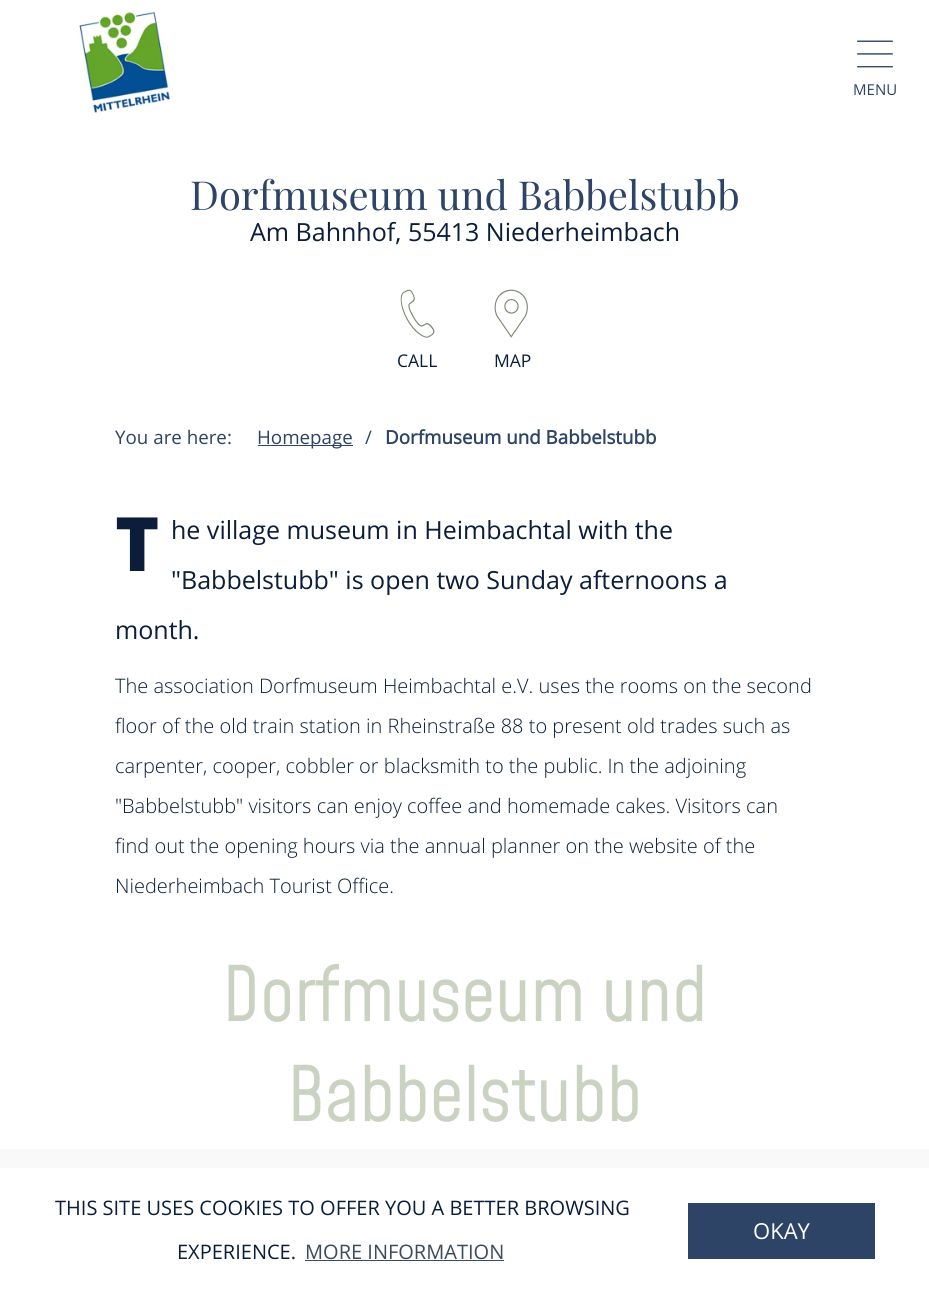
#include <cairo/cairo.h>
#include <math.h>
#include <stddef.h>


static void draw_image(cairo_t *cr, const char *path, double x, double y, double w, double h) {
  cairo_surface_t *image = cairo_image_surface_create_from_png(path);
  cairo_save(cr);
  cairo_set_source_surface(cr, image, x, y);
  cairo_rectangle(cr, x, y, w, h);
  cairo_fill(cr);
  cairo_restore(cr);
  cairo_surface_destroy(image);
}

static void draw(cairo_t *cr) {
  cairo_set_source_rgb(cr, 1, 1, 1);
  cairo_paint(cr);
  draw_image(cr, "images/1.png", 79, 10, 92, 104);
  draw_image(cr, "images/2.png", 857, 40, 36, 28);
  draw_image(cr, "images/3.png", 400, 289, 35, 49);
  draw_image(cr, "images/4.png", 494, 289, 34, 49);
  cairo_set_source_rgb(cr, 45 / 255.0, 68 / 255.0, 103 / 255.0);
  cairo_rectangle(cr, 258, 445, 95, 1);
  cairo_fill(cr);
  cairo_set_source_rgb(cr, 249 / 255.0, 249 / 255.0, 249 / 255.0);
  cairo_rectangle(cr, 0, 1149, 929, 19);
  cairo_fill(cr);
  cairo_set_source_rgb(cr, 60 / 255.0, 74 / 255.0, 96 / 255.0);
  cairo_rectangle(cr, 305, 1260, 199, 1);
  cairo_fill(cr);
  cairo_set_source_rgb(cr, 45 / 255.0, 68 / 255.0, 103 / 255.0);
  cairo_rectangle(cr, 688, 1203, 187, 56);
  cairo_fill(cr);
  cairo_select_font_face(cr, "Open Sans", CAIRO_FONT_SLANT_NORMAL, CAIRO_FONT_WEIGHT_NORMAL);
  cairo_set_font_size(cr, 15);
  cairo_move_to(cr, 853, 95);
  cairo_show_text(cr, "MENU");
  cairo_select_font_face(cr, "Playfair Display", CAIRO_FONT_SLANT_NORMAL, CAIRO_FONT_WEIGHT_NORMAL);
  cairo_set_font_size(cr, 40);
  cairo_move_to(cr, 190, 210);
  cairo_show_text(cr, "Dorfmuseum und Babbelstubb");
  cairo_select_font_face(cr, "Open Sans", CAIRO_FONT_SLANT_NORMAL, CAIRO_FONT_WEIGHT_NORMAL);
  cairo_set_font_size(cr, 25);
  cairo_set_source_rgb(cr, 11 / 255.0, 29 / 255.0, 56 / 255.0);
  cairo_move_to(cr, 250, 241);
  cairo_show_text(cr, "Am Bahnhof, 55413 Niederheimbach");
  cairo_set_font_size(cr, 17.5);
  cairo_move_to(cr, 397, 367);
  cairo_show_text(cr, "CALL");
  cairo_move_to(cr, 494, 367);
  cairo_show_text(cr, "MAP");
  cairo_set_font_size(cr, 18.75);
  cairo_set_source_rgb(cr, 45 / 255.0, 68 / 255.0, 103 / 255.0);
  cairo_move_to(cr, 115, 444);
  cairo_show_text(cr, "You are here:");
  cairo_move_to(cr, 257, 444);
  cairo_show_text(cr, "Homepage");
  cairo_move_to(cr, 365, 444);
  cairo_show_text(cr, "/");
  cairo_select_font_face(cr, "Open Sans", CAIRO_FONT_SLANT_NORMAL, CAIRO_FONT_WEIGHT_BOLD);
  cairo_move_to(cr, 385, 444);
  cairo_show_text(cr, "Dorfmuseum und Babbelstubb");
  cairo_select_font_face(cr, "Noto Sans Black", CAIRO_FONT_SLANT_NORMAL, CAIRO_FONT_WEIGHT_NORMAL);
  cairo_set_font_size(cr, 75);
  cairo_set_source_rgb(cr, 11 / 255.0, 29 / 255.0, 56 / 255.0);
  cairo_move_to(cr, 115, 571);
  cairo_show_text(cr, "T");
  cairo_select_font_face(cr, "Open Sans", CAIRO_FONT_SLANT_NORMAL, CAIRO_FONT_WEIGHT_NORMAL);
  cairo_set_font_size(cr, 25);
  cairo_move_to(cr, 171, 539);
  cairo_show_text(cr, "he village museum in Heimbachtal with the");
  cairo_move_to(cr, 171, 589);
  cairo_show_text(cr, "\"Babbelstubb\" is open two Sunday afternoons a");
  cairo_move_to(cr, 115, 639);
  cairo_show_text(cr, "month.");
  cairo_select_font_face(cr, "Open Sans Light", CAIRO_FONT_SLANT_NORMAL, CAIRO_FONT_WEIGHT_NORMAL);
  cairo_set_font_size(cr, 20);
  cairo_move_to(cr, 115, 693);
  cairo_show_text(cr, "The association Dorfmuseum Heimbachtal e.V. uses the rooms on the second");
  cairo_move_to(cr, 115, 733);
  cairo_show_text(cr, "floor of the old train station in Rheinstraße 88 to present old trades such as");
  cairo_move_to(cr, 115, 773);
  cairo_show_text(cr, "carpenter, cooper, cobbler or blacksmith to the public. In the adjoining");
  cairo_move_to(cr, 115, 813);
  cairo_show_text(cr, "\"Babbelstubb\" visitors can enjoy coffee and homemade cakes. Visitors can");
  cairo_move_to(cr, 115, 853);
  cairo_show_text(cr, "find out the opening hours via the annual planner on the website of the");
  cairo_move_to(cr, 115, 893);
  cairo_show_text(cr, "Niederheimbach Tourist Office.");
  cairo_select_font_face(cr, "Mohave", CAIRO_FONT_SLANT_NORMAL, CAIRO_FONT_WEIGHT_NORMAL);
  cairo_set_font_size(cr, 75);
  cairo_set_source_rgb(cr, 202 / 255.0, 210 / 255.0, 193 / 255.0);
  cairo_move_to(cr, 222, 1021);
  cairo_show_text(cr, "Dorfmuseum und");
  cairo_move_to(cr, 287, 1121);
  cairo_show_text(cr, "Babbelstubb");
  cairo_select_font_face(cr, "Open Sans", CAIRO_FONT_SLANT_NORMAL, CAIRO_FONT_WEIGHT_NORMAL);
  cairo_set_font_size(cr, 20);
  cairo_set_source_rgb(cr, 11 / 255.0, 29 / 255.0, 56 / 255.0);
  cairo_move_to(cr, 55, 1215);
  cairo_show_text(cr, "THIS SITE USES COOKIES TO OFFER YOU A BETTER BROWSING");
  cairo_move_to(cr, 177, 1259);
  cairo_show_text(cr, "EXPERIENCE.");
  cairo_set_source_rgb(cr, 60 / 255.0, 74 / 255.0, 96 / 255.0);
  cairo_move_to(cr, 305, 1259);
  cairo_show_text(cr, "MORE INFORMATION");
  cairo_set_font_size(cr, 22);
  cairo_set_source_rgb(cr, 1, 1, 1);
  cairo_move_to(cr, 753, 1239);
  cairo_show_text(cr, "OKAY");
}

int main(void) {
  cairo_surface_t *surface = cairo_image_surface_create(CAIRO_FORMAT_RGB24, 929, 1295);
  cairo_t *cr = cairo_create(surface);
  cairo_font_options_t *options = cairo_font_options_create();
  cairo_font_options_set_hint_metrics(options, CAIRO_HINT_METRICS_OFF);
  cairo_font_options_set_hint_style(options, CAIRO_HINT_STYLE_NONE);
  cairo_set_font_options(cr, options);
  cairo_set_miter_limit(cr, 4);
  draw(cr);
  cairo_surface_write_to_png(surface, "out.png");
  cairo_font_options_destroy(options);
  cairo_destroy(cr);
  cairo_surface_destroy(surface);
  return 0;
}
